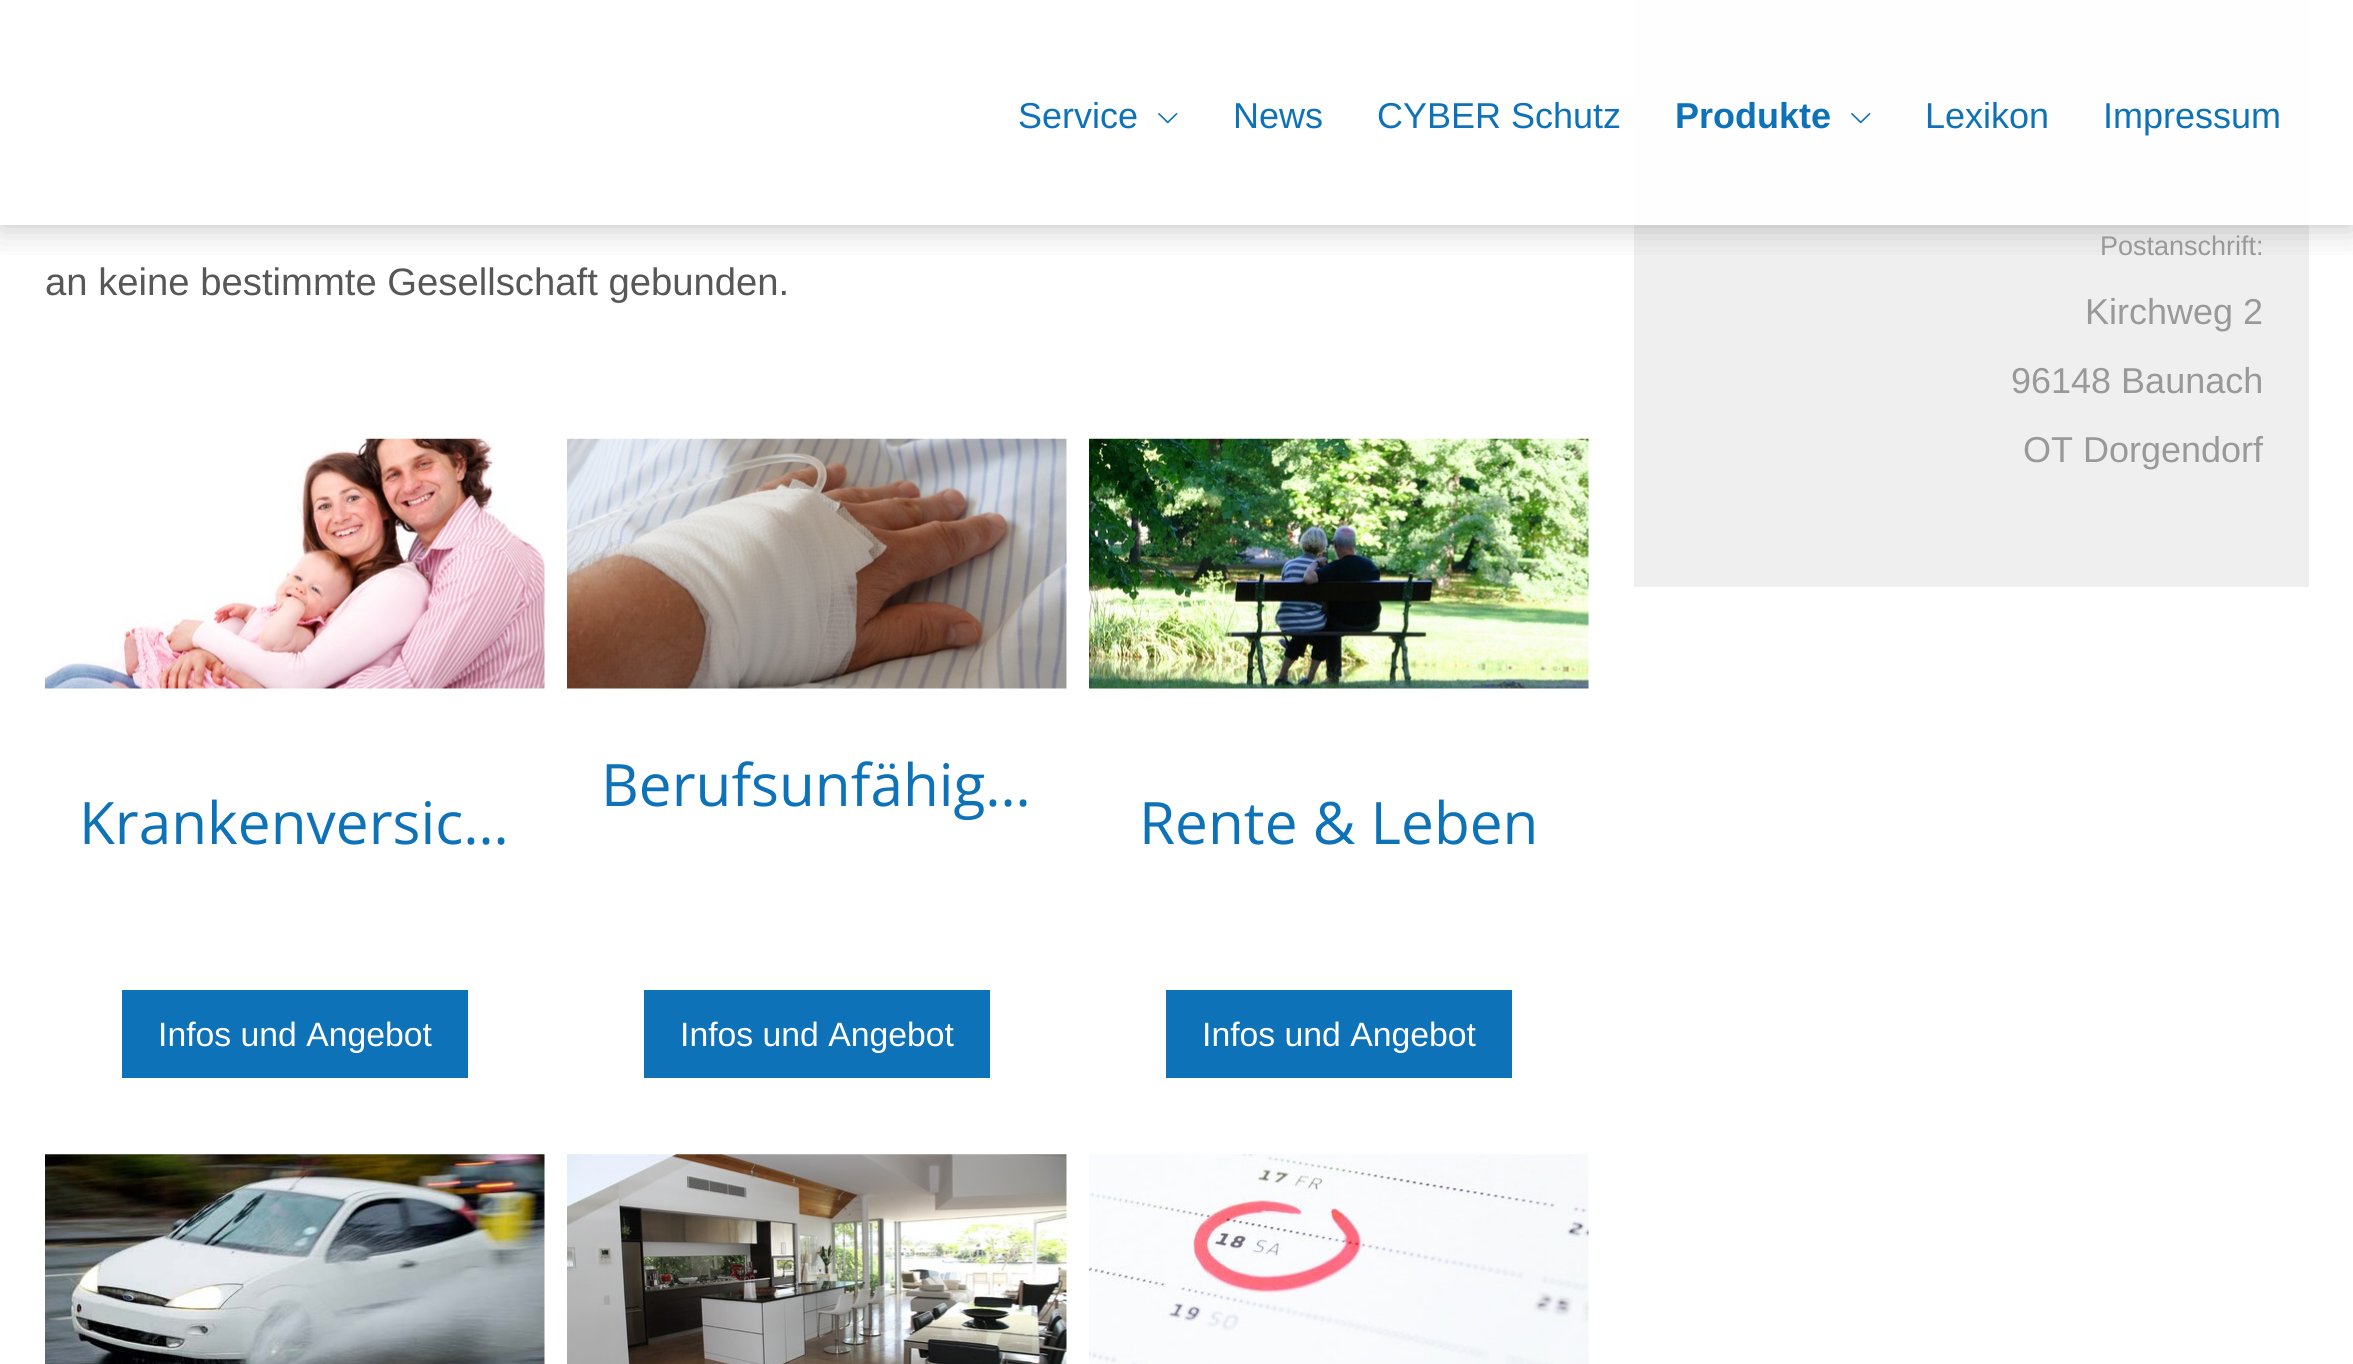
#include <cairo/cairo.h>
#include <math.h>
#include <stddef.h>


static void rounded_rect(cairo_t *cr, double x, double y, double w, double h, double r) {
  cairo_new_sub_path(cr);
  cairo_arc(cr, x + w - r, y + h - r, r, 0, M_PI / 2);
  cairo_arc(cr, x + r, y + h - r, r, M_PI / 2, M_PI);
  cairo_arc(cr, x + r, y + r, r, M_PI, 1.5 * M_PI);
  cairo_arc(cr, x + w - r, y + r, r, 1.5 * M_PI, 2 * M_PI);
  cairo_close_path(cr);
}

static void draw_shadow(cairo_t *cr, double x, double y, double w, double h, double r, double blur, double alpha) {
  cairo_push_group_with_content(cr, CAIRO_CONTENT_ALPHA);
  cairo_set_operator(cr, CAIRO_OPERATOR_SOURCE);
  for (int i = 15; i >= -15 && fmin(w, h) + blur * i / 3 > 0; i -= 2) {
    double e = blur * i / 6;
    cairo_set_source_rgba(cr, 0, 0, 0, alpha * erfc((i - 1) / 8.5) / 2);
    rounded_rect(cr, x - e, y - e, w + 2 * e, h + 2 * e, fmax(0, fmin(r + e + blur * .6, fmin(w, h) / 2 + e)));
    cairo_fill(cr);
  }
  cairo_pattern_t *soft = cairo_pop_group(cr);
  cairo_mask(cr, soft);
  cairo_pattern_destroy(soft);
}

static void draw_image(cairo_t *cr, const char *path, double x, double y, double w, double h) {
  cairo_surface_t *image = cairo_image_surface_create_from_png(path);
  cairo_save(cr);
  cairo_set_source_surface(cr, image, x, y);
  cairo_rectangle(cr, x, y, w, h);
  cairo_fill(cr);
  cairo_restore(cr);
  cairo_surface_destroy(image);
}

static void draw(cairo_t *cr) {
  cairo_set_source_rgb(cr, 1, 1, 1);
  cairo_paint(cr);
  cairo_set_source_rgb(cr, 239 / 255.0, 239 / 255.0, 239 / 255.0);
  cairo_rectangle(cr, 1634, 0, 675, 587);
  cairo_fill(cr);
  cairo_save(cr);
  cairo_rectangle(cr, 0, 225, 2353, 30);
  cairo_clip(cr);
  cairo_set_source_rgb(cr, 90 / 255.0, 90 / 255.0, 90 / 255.0);
  draw_shadow(cr, 0, 0, 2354, 225, 0, 18, 0.4);
  cairo_restore(cr);
  cairo_set_source_rgba(cr, 1, 1, 1, 0.95);
  cairo_rectangle(cr, 1634, 0, 675, 225);
  cairo_fill(cr);
  draw_image(cr, "images/1.png", 1158, 113, 20, 11);
  draw_image(cr, "images/2.png", 1851, 113, 20, 11);
  draw_image(cr, "images/3.png", 45, 438, 500, 251);
  cairo_set_source_rgb(cr, 14 / 255.0, 114 / 255.0, 185 / 255.0);
  cairo_rectangle(cr, 122, 990, 346, 88);
  cairo_fill(cr);
  draw_image(cr, "images/4.png", 567, 438, 500, 251);
  cairo_rectangle(cr, 644, 990, 346, 88);
  cairo_fill(cr);
  draw_image(cr, "images/5.png", 1089, 438, 500, 251);
  cairo_rectangle(cr, 1166, 990, 346, 88);
  cairo_fill(cr);
  draw_image(cr, "images/6.png", 45, 1154, 500, 210);
  draw_image(cr, "images/7.png", 567, 1154, 500, 210);
  draw_image(cr, "images/8.png", 1089, 1154, 500, 210);
  cairo_select_font_face(cr, "Liberation Sans", CAIRO_FONT_SLANT_NORMAL, CAIRO_FONT_WEIGHT_NORMAL);
  cairo_set_font_size(cr, 36);
  cairo_move_to(cr, 1018, 128);
  cairo_show_text(cr, "Service");
  cairo_move_to(cr, 1233, 128);
  cairo_show_text(cr, "News");
  cairo_move_to(cr, 1377, 128);
  cairo_show_text(cr, "CYBER Schutz");
  cairo_select_font_face(cr, "Liberation Sans", CAIRO_FONT_SLANT_NORMAL, CAIRO_FONT_WEIGHT_BOLD);
  cairo_move_to(cr, 1675, 128);
  cairo_show_text(cr, "Produkte");
  cairo_select_font_face(cr, "Liberation Sans", CAIRO_FONT_SLANT_NORMAL, CAIRO_FONT_WEIGHT_NORMAL);
  cairo_move_to(cr, 1925, 128);
  cairo_show_text(cr, "Lexikon");
  cairo_move_to(cr, 2103, 128);
  cairo_show_text(cr, "Impressum");
  cairo_set_font_size(cr, 38.25);
  cairo_set_source_rgb(cr, 88 / 255.0, 87 / 255.0, 87 / 255.0);
  cairo_move_to(cr, 45, 295);
  cairo_show_text(cr, "an keine bestimmte Gesellschaft gebunden.");
  cairo_set_font_size(cr, 27);
  cairo_set_source_rgb(cr, 153 / 255.0, 153 / 255.0, 153 / 255.0);
  cairo_move_to(cr, 2100, 255);
  cairo_show_text(cr, "Postanschrift:");
  cairo_set_font_size(cr, 36);
  cairo_move_to(cr, 2085, 324);
  cairo_show_text(cr, "Kirchweg 2");
  cairo_move_to(cr, 2011, 393);
  cairo_show_text(cr, "96148 Baunach");
  cairo_move_to(cr, 2023, 462);
  cairo_show_text(cr, "OT Dorgendorf");
  cairo_select_font_face(cr, "Open Sans", CAIRO_FONT_SLANT_NORMAL, CAIRO_FONT_WEIGHT_NORMAL);
  cairo_set_font_size(cr, 58.5);
  cairo_set_source_rgb(cr, 14 / 255.0, 114 / 255.0, 185 / 255.0);
  cairo_move_to(cr, 79, 844);
  cairo_show_text(cr, "Krankenversic…");
  cairo_select_font_face(cr, "Liberation Sans", CAIRO_FONT_SLANT_NORMAL, CAIRO_FONT_WEIGHT_NORMAL);
  cairo_set_font_size(cr, 33.75);
  cairo_set_source_rgb(cr, 1, 1, 1);
  cairo_move_to(cr, 158, 1046);
  cairo_show_text(cr, "Infos und Angebot");
  cairo_select_font_face(cr, "Open Sans", CAIRO_FONT_SLANT_NORMAL, CAIRO_FONT_WEIGHT_NORMAL);
  cairo_set_font_size(cr, 58.5);
  cairo_set_source_rgb(cr, 14 / 255.0, 114 / 255.0, 185 / 255.0);
  cairo_move_to(cr, 601, 806);
  cairo_show_text(cr, "Berufsunfähig…");
  cairo_select_font_face(cr, "Liberation Sans", CAIRO_FONT_SLANT_NORMAL, CAIRO_FONT_WEIGHT_NORMAL);
  cairo_set_font_size(cr, 33.75);
  cairo_set_source_rgb(cr, 1, 1, 1);
  cairo_move_to(cr, 680, 1046);
  cairo_show_text(cr, "Infos und Angebot");
  cairo_select_font_face(cr, "Open Sans", CAIRO_FONT_SLANT_NORMAL, CAIRO_FONT_WEIGHT_NORMAL);
  cairo_set_font_size(cr, 58.5);
  cairo_set_source_rgb(cr, 14 / 255.0, 114 / 255.0, 185 / 255.0);
  cairo_move_to(cr, 1139, 844);
  cairo_show_text(cr, "Rente & Leben");
  cairo_select_font_face(cr, "Liberation Sans", CAIRO_FONT_SLANT_NORMAL, CAIRO_FONT_WEIGHT_NORMAL);
  cairo_set_font_size(cr, 33.75);
  cairo_set_source_rgb(cr, 1, 1, 1);
  cairo_move_to(cr, 1202, 1046);
  cairo_show_text(cr, "Infos und Angebot");
}

int main(void) {
  cairo_surface_t *surface = cairo_image_surface_create(CAIRO_FORMAT_RGB24, 2353, 1364);
  cairo_t *cr = cairo_create(surface);
  cairo_font_options_t *options = cairo_font_options_create();
  cairo_font_options_set_hint_metrics(options, CAIRO_HINT_METRICS_OFF);
  cairo_font_options_set_hint_style(options, CAIRO_HINT_STYLE_NONE);
  cairo_set_font_options(cr, options);
  cairo_set_miter_limit(cr, 4);
  draw(cr);
  cairo_surface_write_to_png(surface, "out.png");
  cairo_font_options_destroy(options);
  cairo_destroy(cr);
  cairo_surface_destroy(surface);
  return 0;
}
